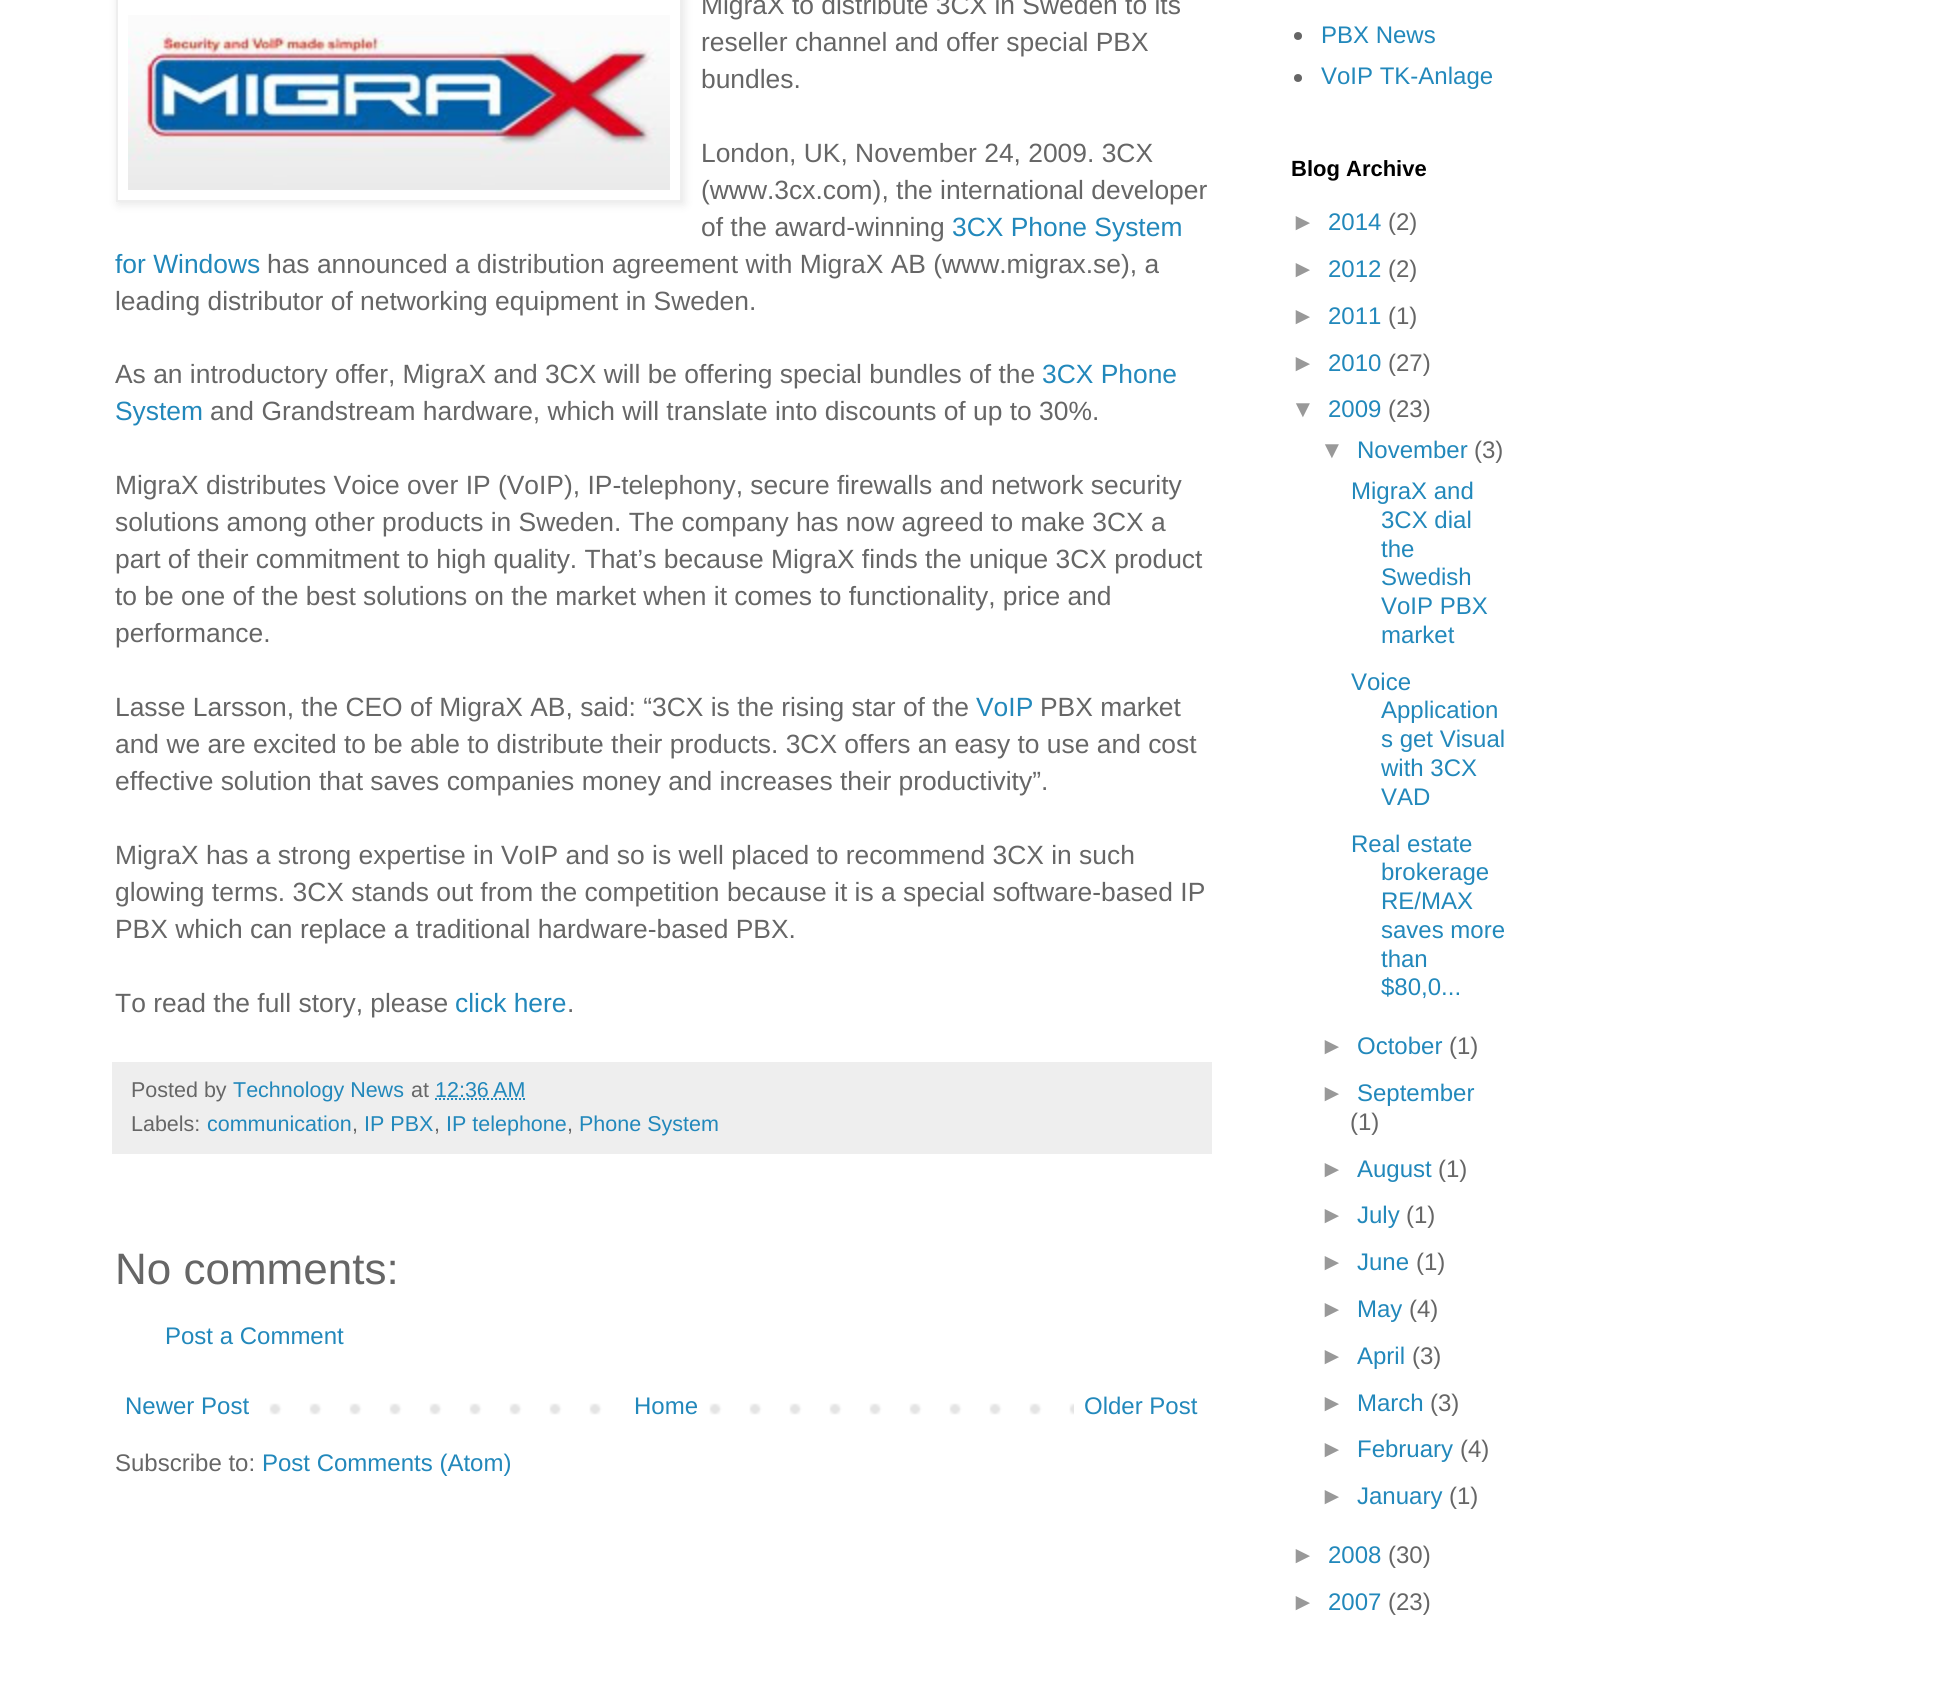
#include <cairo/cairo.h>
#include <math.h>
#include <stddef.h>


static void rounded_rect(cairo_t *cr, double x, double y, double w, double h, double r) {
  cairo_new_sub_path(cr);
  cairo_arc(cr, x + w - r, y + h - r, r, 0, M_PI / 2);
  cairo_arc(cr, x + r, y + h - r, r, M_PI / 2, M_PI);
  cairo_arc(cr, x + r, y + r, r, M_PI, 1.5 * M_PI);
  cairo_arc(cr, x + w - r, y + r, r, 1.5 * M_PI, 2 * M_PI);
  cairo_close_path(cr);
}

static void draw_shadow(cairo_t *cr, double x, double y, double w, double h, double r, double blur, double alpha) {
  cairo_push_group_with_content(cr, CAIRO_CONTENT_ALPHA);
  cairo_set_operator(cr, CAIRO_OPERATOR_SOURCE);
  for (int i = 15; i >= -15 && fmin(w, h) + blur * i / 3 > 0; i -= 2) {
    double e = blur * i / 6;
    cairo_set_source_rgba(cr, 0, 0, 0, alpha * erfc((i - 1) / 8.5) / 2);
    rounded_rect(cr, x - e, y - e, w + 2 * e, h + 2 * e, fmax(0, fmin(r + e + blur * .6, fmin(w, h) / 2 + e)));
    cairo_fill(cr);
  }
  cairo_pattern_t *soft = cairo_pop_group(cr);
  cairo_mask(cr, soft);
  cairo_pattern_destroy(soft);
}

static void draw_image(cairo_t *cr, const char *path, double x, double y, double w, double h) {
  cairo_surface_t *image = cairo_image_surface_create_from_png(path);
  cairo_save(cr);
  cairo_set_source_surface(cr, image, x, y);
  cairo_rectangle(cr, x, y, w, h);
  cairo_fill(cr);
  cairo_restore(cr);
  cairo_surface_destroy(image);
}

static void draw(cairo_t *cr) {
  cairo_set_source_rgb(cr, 1, 1, 1);
  cairo_paint(cr);
  cairo_save(cr);
  cairo_set_fill_rule(cr, CAIRO_FILL_RULE_EVEN_ODD);
  cairo_new_path(cr);
  cairo_move_to(cr, 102, 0);
  cairo_line_to(cr, 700, 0);
  cairo_line_to(cr, 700, 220);
  cairo_line_to(cr, 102, 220);
  cairo_close_path(cr);
  cairo_move_to(cr, 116, -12);
  cairo_line_to(cr, 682, -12);
  cairo_line_to(cr, 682, 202);
  cairo_line_to(cr, 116, 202);
  cairo_close_path(cr);
  cairo_clip(cr);
  cairo_set_source_rgb(cr, 0, 0, 0);
  draw_shadow(cr, 118, -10, 566, 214, 0, 5, 0.1);
  cairo_restore(cr);
  cairo_rectangle(cr, 117, -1, 564, 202);
  cairo_set_source_rgb(cr, 238 / 255.0, 238 / 255.0, 238 / 255.0);
  cairo_stroke(cr);
  draw_image(cr, "images/1.png", 128, 15, 542, 175);
  cairo_rectangle(cr, 112, 1062, 1100, 92);
  cairo_fill(cr);
  cairo_new_path(cr);
  cairo_move_to(cr, 435, 1099);
  cairo_line_to(cr, 525.5, 1099);
  cairo_set_source_rgb(cr, 34 / 255.0, 136 / 255.0, 187 / 255.0);
  cairo_set_dash(cr, (double[]){2, 2}, 2, 0);
  cairo_stroke(cr);
  draw_image(cr, "images/2.png", 269, 1403, 805, 12);
  cairo_set_source_rgb(cr, 1, 1, 1);
  cairo_rectangle(cr, 629, 1403, 53, 12);
  cairo_fill(cr);
  cairo_set_source_rgb(cr, 102 / 255.0, 102 / 255.0, 102 / 255.0);
  cairo_arc(cr, 1298, 36, 4, 0, 2 * M_PI);
  cairo_fill(cr);
  cairo_arc(cr, 1298, 78, 4, 0, 2 * M_PI);
  cairo_fill(cr);
  cairo_select_font_face(cr, "Liberation Sans", CAIRO_FONT_SLANT_NORMAL, CAIRO_FONT_WEIGHT_NORMAL);
  cairo_set_font_size(cr, 26.4);
  cairo_move_to(cr, 701, 14);
  cairo_show_text(cr, "MigraX to distribute 3CX in Sweden to its");
  cairo_move_to(cr, 701, 51);
  cairo_show_text(cr, "reseller channel and offer special PBX");
  cairo_move_to(cr, 701, 88);
  cairo_show_text(cr, "bundles.");
  cairo_move_to(cr, 701, 162);
  cairo_show_text(cr, "London, UK, November 24, 2009. 3CX");
  cairo_move_to(cr, 701, 199);
  cairo_show_text(cr, "(www.3cx.com), the international developer");
  cairo_move_to(cr, 701, 236);
  cairo_show_text(cr, "of the award-winning");
  cairo_set_source_rgb(cr, 34 / 255.0, 136 / 255.0, 187 / 255.0);
  cairo_move_to(cr, 952, 236);
  cairo_show_text(cr, "3CX Phone System");
  cairo_move_to(cr, 115, 273);
  cairo_show_text(cr, "for Windows");
  cairo_set_source_rgb(cr, 102 / 255.0, 102 / 255.0, 102 / 255.0);
  cairo_move_to(cr, 267, 273);
  cairo_show_text(cr, "has announced a distribution agreement with MigraX AB (www.migrax.se), a");
  cairo_move_to(cr, 115, 310);
  cairo_show_text(cr, "leading distributor of networking equipment in Sweden.");
  cairo_move_to(cr, 115, 383);
  cairo_show_text(cr, "As an introductory offer, MigraX and 3CX will be offering special bundles of the");
  cairo_set_source_rgb(cr, 34 / 255.0, 136 / 255.0, 187 / 255.0);
  cairo_move_to(cr, 1042, 383);
  cairo_show_text(cr, "3CX Phone");
  cairo_move_to(cr, 115, 420);
  cairo_show_text(cr, "System");
  cairo_set_source_rgb(cr, 102 / 255.0, 102 / 255.0, 102 / 255.0);
  cairo_move_to(cr, 210, 420);
  cairo_show_text(cr, "and Grandstream hardware, which will translate into discounts of up to 30%.");
  cairo_move_to(cr, 115, 494);
  cairo_show_text(cr, "MigraX distributes Voice over IP (VoIP), IP-telephony, secure firewalls and network security");
  cairo_move_to(cr, 115, 531);
  cairo_show_text(cr, "solutions among other products in Sweden. The company has now agreed to make 3CX a");
  cairo_move_to(cr, 115, 568);
  cairo_show_text(cr, "part of their commitment to high quality. That’s because MigraX finds the unique 3CX product");
  cairo_move_to(cr, 115, 605);
  cairo_show_text(cr, "to be one of the best solutions on the market when it comes to functionality, price and");
  cairo_move_to(cr, 115, 642);
  cairo_show_text(cr, "performance.");
  cairo_move_to(cr, 115, 716);
  cairo_show_text(cr, "Lasse Larsson, the CEO of MigraX AB, said: “3CX is the rising star of the");
  cairo_set_source_rgb(cr, 34 / 255.0, 136 / 255.0, 187 / 255.0);
  cairo_move_to(cr, 976, 716);
  cairo_show_text(cr, "VoIP");
  cairo_set_source_rgb(cr, 102 / 255.0, 102 / 255.0, 102 / 255.0);
  cairo_move_to(cr, 1040, 716);
  cairo_show_text(cr, "PBX market");
  cairo_move_to(cr, 115, 753);
  cairo_show_text(cr, "and we are excited to be able to distribute their products. 3CX offers an easy to use and cost");
  cairo_move_to(cr, 115, 790);
  cairo_show_text(cr, "effective solution that saves companies money and increases their productivity”.");
  cairo_move_to(cr, 115, 864);
  cairo_show_text(cr, "MigraX has a strong expertise in VoIP and so is well placed to recommend 3CX in such");
  cairo_move_to(cr, 115, 901);
  cairo_show_text(cr, "glowing terms. 3CX stands out from the competition because it is a special software-based IP");
  cairo_move_to(cr, 115, 938);
  cairo_show_text(cr, "PBX which can replace a traditional hardware-based PBX.");
  cairo_move_to(cr, 115, 1012);
  cairo_show_text(cr, "To read the full story, please");
  cairo_set_source_rgb(cr, 34 / 255.0, 136 / 255.0, 187 / 255.0);
  cairo_move_to(cr, 455, 1012);
  cairo_show_text(cr, "click here");
  cairo_set_source_rgb(cr, 102 / 255.0, 102 / 255.0, 102 / 255.0);
  cairo_move_to(cr, 567, 1012);
  cairo_show_text(cr, ".");
  cairo_set_font_size(cr, 21.5);
  cairo_move_to(cr, 131, 1097);
  cairo_show_text(cr, "Posted by");
  cairo_set_source_rgb(cr, 34 / 255.0, 136 / 255.0, 187 / 255.0);
  cairo_move_to(cr, 233, 1097);
  cairo_show_text(cr, "Technology News");
  cairo_set_source_rgb(cr, 102 / 255.0, 102 / 255.0, 102 / 255.0);
  cairo_move_to(cr, 411, 1097);
  cairo_show_text(cr, "at");
  cairo_set_source_rgb(cr, 34 / 255.0, 136 / 255.0, 187 / 255.0);
  cairo_move_to(cr, 435, 1097);
  cairo_show_text(cr, "12:36 AM");
  cairo_set_source_rgb(cr, 102 / 255.0, 102 / 255.0, 102 / 255.0);
  cairo_move_to(cr, 131, 1131);
  cairo_show_text(cr, "Labels:");
  cairo_set_source_rgb(cr, 34 / 255.0, 136 / 255.0, 187 / 255.0);
  cairo_move_to(cr, 207, 1131);
  cairo_show_text(cr, "communication");
  cairo_set_source_rgb(cr, 102 / 255.0, 102 / 255.0, 102 / 255.0);
  cairo_move_to(cr, 352, 1131);
  cairo_show_text(cr, ",");
  cairo_set_source_rgb(cr, 34 / 255.0, 136 / 255.0, 187 / 255.0);
  cairo_move_to(cr, 364, 1131);
  cairo_show_text(cr, "IP PBX");
  cairo_set_source_rgb(cr, 102 / 255.0, 102 / 255.0, 102 / 255.0);
  cairo_move_to(cr, 434, 1131);
  cairo_show_text(cr, ",");
  cairo_set_source_rgb(cr, 34 / 255.0, 136 / 255.0, 187 / 255.0);
  cairo_move_to(cr, 446, 1131);
  cairo_show_text(cr, "IP telephone");
  cairo_set_source_rgb(cr, 102 / 255.0, 102 / 255.0, 102 / 255.0);
  cairo_move_to(cr, 567, 1131);
  cairo_show_text(cr, ",");
  cairo_set_source_rgb(cr, 34 / 255.0, 136 / 255.0, 187 / 255.0);
  cairo_move_to(cr, 579, 1131);
  cairo_show_text(cr, "Phone System");
  cairo_set_font_size(cr, 44);
  cairo_set_source_rgb(cr, 102 / 255.0, 102 / 255.0, 102 / 255.0);
  cairo_move_to(cr, 115, 1284);
  cairo_show_text(cr, "No comments:");
  cairo_set_font_size(cr, 24);
  cairo_set_source_rgb(cr, 34 / 255.0, 136 / 255.0, 187 / 255.0);
  cairo_move_to(cr, 165, 1344);
  cairo_show_text(cr, "Post a Comment");
  cairo_move_to(cr, 125, 1414);
  cairo_show_text(cr, "Newer Post");
  cairo_move_to(cr, 634, 1414);
  cairo_show_text(cr, "Home");
  cairo_move_to(cr, 1084, 1414);
  cairo_show_text(cr, "Older Post");
  cairo_set_source_rgb(cr, 102 / 255.0, 102 / 255.0, 102 / 255.0);
  cairo_move_to(cr, 115, 1471);
  cairo_show_text(cr, "Subscribe to:");
  cairo_set_source_rgb(cr, 34 / 255.0, 136 / 255.0, 187 / 255.0);
  cairo_move_to(cr, 262, 1471);
  cairo_show_text(cr, "Post Comments (Atom)");
  cairo_move_to(cr, 1321, 43);
  cairo_show_text(cr, "PBX News");
  cairo_move_to(cr, 1321, 84);
  cairo_show_text(cr, "VoIP TK-Anlage");
  cairo_select_font_face(cr, "Liberation Sans", CAIRO_FONT_SLANT_NORMAL, CAIRO_FONT_WEIGHT_BOLD);
  cairo_set_font_size(cr, 22);
  cairo_set_source_rgb(cr, 0, 0, 0);
  cairo_move_to(cr, 1291, 176);
  cairo_show_text(cr, "Blog Archive");
  cairo_select_font_face(cr, "Liberation Sans", CAIRO_FONT_SLANT_NORMAL, CAIRO_FONT_WEIGHT_NORMAL);
  cairo_set_font_size(cr, 24);
  cairo_set_source_rgb(cr, 153 / 255.0, 153 / 255.0, 153 / 255.0);
  cairo_move_to(cr, 1291, 230);
  cairo_show_text(cr, "►");
  cairo_set_source_rgb(cr, 34 / 255.0, 136 / 255.0, 187 / 255.0);
  cairo_move_to(cr, 1328, 230);
  cairo_show_text(cr, "2014");
  cairo_set_source_rgb(cr, 102 / 255.0, 102 / 255.0, 102 / 255.0);
  cairo_move_to(cr, 1388, 230);
  cairo_show_text(cr, "(2)");
  cairo_set_source_rgb(cr, 153 / 255.0, 153 / 255.0, 153 / 255.0);
  cairo_move_to(cr, 1291, 277);
  cairo_show_text(cr, "►");
  cairo_set_source_rgb(cr, 34 / 255.0, 136 / 255.0, 187 / 255.0);
  cairo_move_to(cr, 1328, 277);
  cairo_show_text(cr, "2012");
  cairo_set_source_rgb(cr, 102 / 255.0, 102 / 255.0, 102 / 255.0);
  cairo_move_to(cr, 1388, 277);
  cairo_show_text(cr, "(2)");
  cairo_set_source_rgb(cr, 153 / 255.0, 153 / 255.0, 153 / 255.0);
  cairo_move_to(cr, 1291, 324);
  cairo_show_text(cr, "►");
  cairo_set_source_rgb(cr, 34 / 255.0, 136 / 255.0, 187 / 255.0);
  cairo_move_to(cr, 1328, 324);
  cairo_show_text(cr, "2011");
  cairo_set_source_rgb(cr, 102 / 255.0, 102 / 255.0, 102 / 255.0);
  cairo_move_to(cr, 1388, 324);
  cairo_show_text(cr, "(1)");
  cairo_set_source_rgb(cr, 153 / 255.0, 153 / 255.0, 153 / 255.0);
  cairo_move_to(cr, 1291, 371);
  cairo_show_text(cr, "►");
  cairo_set_source_rgb(cr, 34 / 255.0, 136 / 255.0, 187 / 255.0);
  cairo_move_to(cr, 1328, 371);
  cairo_show_text(cr, "2010");
  cairo_set_source_rgb(cr, 102 / 255.0, 102 / 255.0, 102 / 255.0);
  cairo_move_to(cr, 1388, 371);
  cairo_show_text(cr, "(27)");
  cairo_set_source_rgb(cr, 153 / 255.0, 153 / 255.0, 153 / 255.0);
  cairo_move_to(cr, 1291, 417);
  cairo_show_text(cr, "▼");
  cairo_set_source_rgb(cr, 34 / 255.0, 136 / 255.0, 187 / 255.0);
  cairo_move_to(cr, 1328, 417);
  cairo_show_text(cr, "2009");
  cairo_set_source_rgb(cr, 102 / 255.0, 102 / 255.0, 102 / 255.0);
  cairo_move_to(cr, 1388, 417);
  cairo_show_text(cr, "(23)");
  cairo_set_source_rgb(cr, 153 / 255.0, 153 / 255.0, 153 / 255.0);
  cairo_move_to(cr, 1320, 458);
  cairo_show_text(cr, "▼");
  cairo_set_source_rgb(cr, 34 / 255.0, 136 / 255.0, 187 / 255.0);
  cairo_move_to(cr, 1357, 458);
  cairo_show_text(cr, "November");
  cairo_set_source_rgb(cr, 102 / 255.0, 102 / 255.0, 102 / 255.0);
  cairo_move_to(cr, 1474, 458);
  cairo_show_text(cr, "(3)");
  cairo_set_source_rgb(cr, 34 / 255.0, 136 / 255.0, 187 / 255.0);
  cairo_move_to(cr, 1351, 499);
  cairo_show_text(cr, "MigraX and");
  cairo_move_to(cr, 1381, 528);
  cairo_show_text(cr, "3CX dial");
  cairo_move_to(cr, 1381, 557);
  cairo_show_text(cr, "the");
  cairo_move_to(cr, 1381, 585);
  cairo_show_text(cr, "Swedish");
  cairo_move_to(cr, 1381, 614);
  cairo_show_text(cr, "VoIP PBX");
  cairo_move_to(cr, 1381, 643);
  cairo_show_text(cr, "market");
  cairo_move_to(cr, 1351, 690);
  cairo_show_text(cr, "Voice");
  cairo_move_to(cr, 1381, 718);
  cairo_show_text(cr, "Application");
  cairo_move_to(cr, 1381, 747);
  cairo_show_text(cr, "s get Visual");
  cairo_move_to(cr, 1381, 776);
  cairo_show_text(cr, "with 3CX");
  cairo_move_to(cr, 1381, 805);
  cairo_show_text(cr, "VAD");
  cairo_move_to(cr, 1351, 852);
  cairo_show_text(cr, "Real estate");
  cairo_move_to(cr, 1381, 880);
  cairo_show_text(cr, "brokerage");
  cairo_move_to(cr, 1381, 909);
  cairo_show_text(cr, "RE/MAX");
  cairo_move_to(cr, 1381, 938);
  cairo_show_text(cr, "saves more");
  cairo_move_to(cr, 1381, 967);
  cairo_show_text(cr, "than");
  cairo_move_to(cr, 1381, 995);
  cairo_show_text(cr, "$80,0...");
  cairo_set_source_rgb(cr, 153 / 255.0, 153 / 255.0, 153 / 255.0);
  cairo_move_to(cr, 1320, 1054);
  cairo_show_text(cr, "►");
  cairo_set_source_rgb(cr, 34 / 255.0, 136 / 255.0, 187 / 255.0);
  cairo_move_to(cr, 1357, 1054);
  cairo_show_text(cr, "October");
  cairo_set_source_rgb(cr, 102 / 255.0, 102 / 255.0, 102 / 255.0);
  cairo_move_to(cr, 1449, 1054);
  cairo_show_text(cr, "(1)");
  cairo_set_source_rgb(cr, 153 / 255.0, 153 / 255.0, 153 / 255.0);
  cairo_move_to(cr, 1320, 1101);
  cairo_show_text(cr, "►");
  cairo_set_source_rgb(cr, 34 / 255.0, 136 / 255.0, 187 / 255.0);
  cairo_move_to(cr, 1357, 1101);
  cairo_show_text(cr, "September");
  cairo_set_source_rgb(cr, 102 / 255.0, 102 / 255.0, 102 / 255.0);
  cairo_move_to(cr, 1350, 1130);
  cairo_show_text(cr, "(1)");
  cairo_set_source_rgb(cr, 153 / 255.0, 153 / 255.0, 153 / 255.0);
  cairo_move_to(cr, 1320, 1177);
  cairo_show_text(cr, "►");
  cairo_set_source_rgb(cr, 34 / 255.0, 136 / 255.0, 187 / 255.0);
  cairo_move_to(cr, 1357, 1177);
  cairo_show_text(cr, "August");
  cairo_set_source_rgb(cr, 102 / 255.0, 102 / 255.0, 102 / 255.0);
  cairo_move_to(cr, 1438, 1177);
  cairo_show_text(cr, "(1)");
  cairo_set_source_rgb(cr, 153 / 255.0, 153 / 255.0, 153 / 255.0);
  cairo_move_to(cr, 1320, 1223);
  cairo_show_text(cr, "►");
  cairo_set_source_rgb(cr, 34 / 255.0, 136 / 255.0, 187 / 255.0);
  cairo_move_to(cr, 1357, 1223);
  cairo_show_text(cr, "July");
  cairo_set_source_rgb(cr, 102 / 255.0, 102 / 255.0, 102 / 255.0);
  cairo_move_to(cr, 1406, 1223);
  cairo_show_text(cr, "(1)");
  cairo_set_source_rgb(cr, 153 / 255.0, 153 / 255.0, 153 / 255.0);
  cairo_move_to(cr, 1320, 1270);
  cairo_show_text(cr, "►");
  cairo_set_source_rgb(cr, 34 / 255.0, 136 / 255.0, 187 / 255.0);
  cairo_move_to(cr, 1357, 1270);
  cairo_show_text(cr, "June");
  cairo_set_source_rgb(cr, 102 / 255.0, 102 / 255.0, 102 / 255.0);
  cairo_move_to(cr, 1416, 1270);
  cairo_show_text(cr, "(1)");
  cairo_set_source_rgb(cr, 153 / 255.0, 153 / 255.0, 153 / 255.0);
  cairo_move_to(cr, 1320, 1317);
  cairo_show_text(cr, "►");
  cairo_set_source_rgb(cr, 34 / 255.0, 136 / 255.0, 187 / 255.0);
  cairo_move_to(cr, 1357, 1317);
  cairo_show_text(cr, "May");
  cairo_set_source_rgb(cr, 102 / 255.0, 102 / 255.0, 102 / 255.0);
  cairo_move_to(cr, 1409, 1317);
  cairo_show_text(cr, "(4)");
  cairo_set_source_rgb(cr, 153 / 255.0, 153 / 255.0, 153 / 255.0);
  cairo_move_to(cr, 1320, 1364);
  cairo_show_text(cr, "►");
  cairo_set_source_rgb(cr, 34 / 255.0, 136 / 255.0, 187 / 255.0);
  cairo_move_to(cr, 1357, 1364);
  cairo_show_text(cr, "April");
  cairo_set_source_rgb(cr, 102 / 255.0, 102 / 255.0, 102 / 255.0);
  cairo_move_to(cr, 1412, 1364);
  cairo_show_text(cr, "(3)");
  cairo_set_source_rgb(cr, 153 / 255.0, 153 / 255.0, 153 / 255.0);
  cairo_move_to(cr, 1320, 1411);
  cairo_show_text(cr, "►");
  cairo_set_source_rgb(cr, 34 / 255.0, 136 / 255.0, 187 / 255.0);
  cairo_move_to(cr, 1357, 1411);
  cairo_show_text(cr, "March");
  cairo_set_source_rgb(cr, 102 / 255.0, 102 / 255.0, 102 / 255.0);
  cairo_move_to(cr, 1430, 1411);
  cairo_show_text(cr, "(3)");
  cairo_set_source_rgb(cr, 153 / 255.0, 153 / 255.0, 153 / 255.0);
  cairo_move_to(cr, 1320, 1457);
  cairo_show_text(cr, "►");
  cairo_set_source_rgb(cr, 34 / 255.0, 136 / 255.0, 187 / 255.0);
  cairo_move_to(cr, 1357, 1457);
  cairo_show_text(cr, "February");
  cairo_set_source_rgb(cr, 102 / 255.0, 102 / 255.0, 102 / 255.0);
  cairo_move_to(cr, 1460, 1457);
  cairo_show_text(cr, "(4)");
  cairo_set_source_rgb(cr, 153 / 255.0, 153 / 255.0, 153 / 255.0);
  cairo_move_to(cr, 1320, 1504);
  cairo_show_text(cr, "►");
  cairo_set_source_rgb(cr, 34 / 255.0, 136 / 255.0, 187 / 255.0);
  cairo_move_to(cr, 1357, 1504);
  cairo_show_text(cr, "January");
  cairo_set_source_rgb(cr, 102 / 255.0, 102 / 255.0, 102 / 255.0);
  cairo_move_to(cr, 1449, 1504);
  cairo_show_text(cr, "(1)");
  cairo_set_source_rgb(cr, 153 / 255.0, 153 / 255.0, 153 / 255.0);
  cairo_move_to(cr, 1291, 1563);
  cairo_show_text(cr, "►");
  cairo_set_source_rgb(cr, 34 / 255.0, 136 / 255.0, 187 / 255.0);
  cairo_move_to(cr, 1328, 1563);
  cairo_show_text(cr, "2008");
  cairo_set_source_rgb(cr, 102 / 255.0, 102 / 255.0, 102 / 255.0);
  cairo_move_to(cr, 1388, 1563);
  cairo_show_text(cr, "(30)");
  cairo_set_source_rgb(cr, 153 / 255.0, 153 / 255.0, 153 / 255.0);
  cairo_move_to(cr, 1291, 1610);
  cairo_show_text(cr, "►");
  cairo_set_source_rgb(cr, 34 / 255.0, 136 / 255.0, 187 / 255.0);
  cairo_move_to(cr, 1328, 1610);
  cairo_show_text(cr, "2007");
  cairo_set_source_rgb(cr, 102 / 255.0, 102 / 255.0, 102 / 255.0);
  cairo_move_to(cr, 1388, 1610);
  cairo_show_text(cr, "(23)");
}

int main(void) {
  cairo_surface_t *surface = cairo_image_surface_create(CAIRO_FORMAT_RGB24, 1941, 1684);
  cairo_t *cr = cairo_create(surface);
  cairo_font_options_t *options = cairo_font_options_create();
  cairo_font_options_set_hint_metrics(options, CAIRO_HINT_METRICS_OFF);
  cairo_font_options_set_hint_style(options, CAIRO_HINT_STYLE_NONE);
  cairo_set_font_options(cr, options);
  cairo_set_miter_limit(cr, 4);
  draw(cr);
  cairo_surface_write_to_png(surface, "out.png");
  cairo_font_options_destroy(options);
  cairo_destroy(cr);
  cairo_surface_destroy(surface);
  return 0;
}
